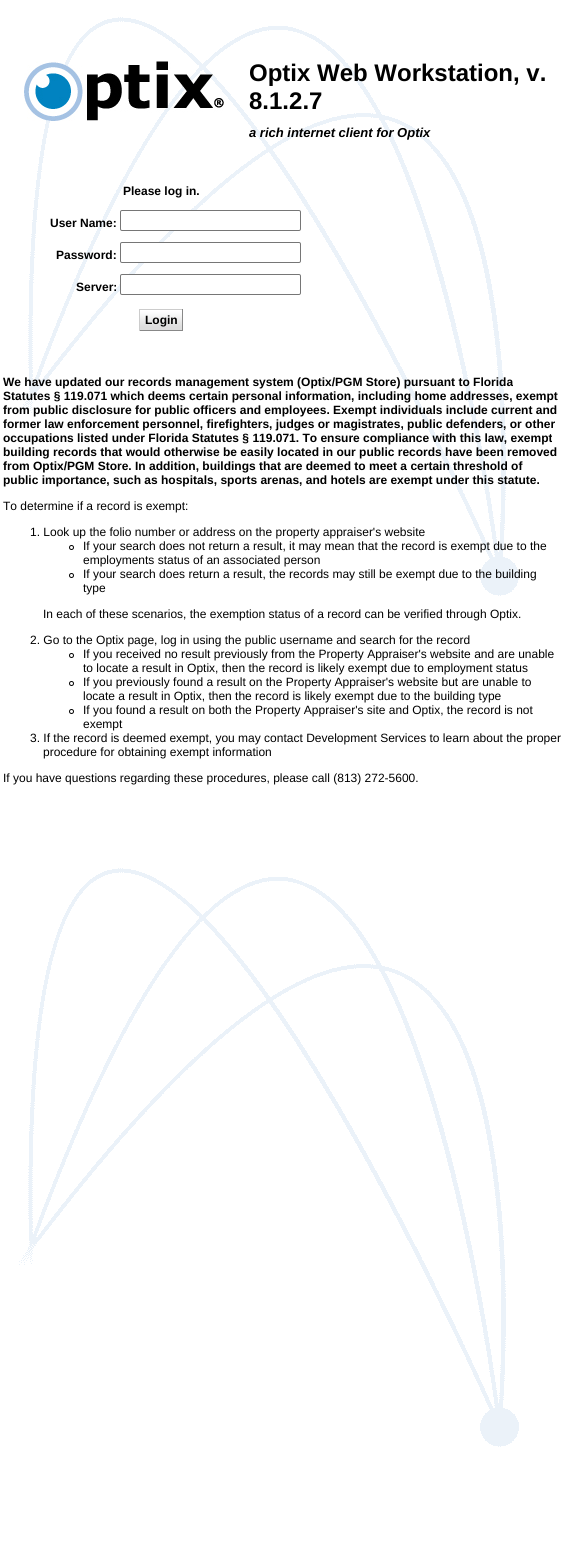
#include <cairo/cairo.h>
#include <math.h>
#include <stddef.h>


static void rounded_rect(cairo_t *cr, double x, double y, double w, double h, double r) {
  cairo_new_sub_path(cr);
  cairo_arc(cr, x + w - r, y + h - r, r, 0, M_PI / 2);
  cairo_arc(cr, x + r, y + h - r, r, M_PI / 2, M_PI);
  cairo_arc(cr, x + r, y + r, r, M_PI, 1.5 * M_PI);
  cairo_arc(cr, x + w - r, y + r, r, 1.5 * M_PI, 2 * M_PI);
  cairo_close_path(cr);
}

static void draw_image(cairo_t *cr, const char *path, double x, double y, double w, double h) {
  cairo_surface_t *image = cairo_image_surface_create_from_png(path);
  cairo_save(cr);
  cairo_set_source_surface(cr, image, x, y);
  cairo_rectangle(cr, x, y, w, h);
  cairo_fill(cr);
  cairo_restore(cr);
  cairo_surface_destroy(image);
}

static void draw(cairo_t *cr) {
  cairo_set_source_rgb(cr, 1, 1, 1);
  cairo_paint(cr);
  draw_image(cr, "images/1.png", 19, 17, 500, 1430);
  draw_image(cr, "images/2.png", 24, 61, 200, 60);
  cairo_set_source_rgb(cr, 1, 1, 1);
  rounded_rect(cr, 120.5, 210.5, 180, 20, 1.5);
  cairo_fill_preserve(cr);
  cairo_set_source_rgb(cr, 118 / 255.0, 118 / 255.0, 118 / 255.0);
  cairo_set_line_width(cr, 1);
  cairo_stroke(cr);
  cairo_set_source_rgb(cr, 1, 1, 1);
  rounded_rect(cr, 120.5, 242.5, 180, 20, 1.5);
  cairo_fill_preserve(cr);
  cairo_set_source_rgb(cr, 118 / 255.0, 118 / 255.0, 118 / 255.0);
  cairo_stroke(cr);
  cairo_set_source_rgb(cr, 1, 1, 1);
  rounded_rect(cr, 120.5, 274.5, 180, 20, 1.5);
  cairo_fill_preserve(cr);
  cairo_set_source_rgb(cr, 118 / 255.0, 118 / 255.0, 118 / 255.0);
  cairo_stroke(cr);
  draw_image(cr, "images/3.png", 140, 310, 42, 20);
  cairo_set_source_rgb(cr, 204 / 255.0, 204 / 255.0, 204 / 255.0);
  cairo_rectangle(cr, 139, 309, 44, 1);
  cairo_fill(cr);
  cairo_set_source_rgb(cr, 136 / 255.0, 136 / 255.0, 136 / 255.0);
  cairo_rectangle(cr, 182, 309, 1, 22);
  cairo_fill(cr);
  cairo_rectangle(cr, 139, 330, 44, 1);
  cairo_fill(cr);
  cairo_set_source_rgb(cr, 204 / 255.0, 204 / 255.0, 204 / 255.0);
  cairo_rectangle(cr, 139, 309, 1, 22);
  cairo_fill(cr);
  cairo_arc(cr, 71.5, 547.5, 2, 0, 2 * M_PI);
  cairo_set_source_rgb(cr, 0, 0, 0);
  cairo_stroke(cr);
  cairo_arc(cr, 71.5, 575.5, 2, 0, 2 * M_PI);
  cairo_stroke(cr);
  cairo_arc(cr, 71.5, 655.5, 2, 0, 2 * M_PI);
  cairo_stroke(cr);
  cairo_arc(cr, 71.5, 683.5, 2, 0, 2 * M_PI);
  cairo_stroke(cr);
  cairo_arc(cr, 71.5, 711.5, 2, 0, 2 * M_PI);
  cairo_stroke(cr);
  cairo_select_font_face(cr, "Liberation Sans", CAIRO_FONT_SLANT_NORMAL, CAIRO_FONT_WEIGHT_BOLD);
  cairo_set_font_size(cr, 24);
  cairo_move_to(cr, 249, 81);
  cairo_show_text(cr, "Optix Web Workstation, v.");
  cairo_move_to(cr, 249, 109);
  cairo_show_text(cr, "8.1.2.7");
  cairo_select_font_face(cr, "Liberation Sans", CAIRO_FONT_SLANT_ITALIC, CAIRO_FONT_WEIGHT_BOLD);
  cairo_set_font_size(cr, 13);
  cairo_move_to(cr, 249, 137);
  cairo_show_text(cr, "a rich internet client for Optix");
  cairo_select_font_face(cr, "Liberation Sans", CAIRO_FONT_SLANT_NORMAL, CAIRO_FONT_WEIGHT_BOLD);
  cairo_set_font_size(cr, 12);
  cairo_move_to(cr, 123, 195);
  cairo_show_text(cr, "Please log in.");
  cairo_move_to(cr, 50, 227);
  cairo_show_text(cr, "User Name:");
  cairo_move_to(cr, 56, 259);
  cairo_show_text(cr, "Password:");
  cairo_move_to(cr, 76, 291);
  cairo_show_text(cr, "Server:");
  cairo_move_to(cr, 145, 324);
  cairo_show_text(cr, "Login");
  cairo_move_to(cr, 3, 386);
  cairo_show_text(cr, "We have updated our records management system (Optix/PGM Store) pursuant to Florida");
  cairo_move_to(cr, 3, 400);
  cairo_show_text(cr, "Statutes § 119.071 which deems certain personal information, including home addresses, exempt");
  cairo_move_to(cr, 3, 414);
  cairo_show_text(cr, "from public disclosure for public officers and employees. Exempt individuals include current and");
  cairo_move_to(cr, 3, 428);
  cairo_show_text(cr, "former law enforcement personnel, firefighters, judges or magistrates, public defenders, or other");
  cairo_move_to(cr, 3, 442);
  cairo_show_text(cr, "occupations listed under Florida Statutes § 119.071. To ensure compliance with this law, exempt");
  cairo_move_to(cr, 3, 456);
  cairo_show_text(cr, "building records that would otherwise be easily located in our public records have been removed");
  cairo_move_to(cr, 3, 470);
  cairo_show_text(cr, "from Optix/PGM Store. In addition, buildings that are deemed to meet a certain threshold of");
  cairo_move_to(cr, 3, 484);
  cairo_show_text(cr, "public importance, such as hospitals, sports arenas, and hotels are exempt under this statute.");
  cairo_select_font_face(cr, "Liberation Sans", CAIRO_FONT_SLANT_NORMAL, CAIRO_FONT_WEIGHT_NORMAL);
  cairo_move_to(cr, 3, 510);
  cairo_show_text(cr, "To determine if a record is exempt:");
  cairo_move_to(cr, 30, 536);
  cairo_show_text(cr, "1. Look up the folio number or address on the property appraiser's website");
  cairo_move_to(cr, 83, 550);
  cairo_show_text(cr, "If your search does not return a result, it may mean that the record is exempt due to the");
  cairo_move_to(cr, 83, 564);
  cairo_show_text(cr, "employments status of an associated person");
  cairo_move_to(cr, 83, 578);
  cairo_show_text(cr, "If your search does return a result, the records may still be exempt due to the building");
  cairo_move_to(cr, 83, 592);
  cairo_show_text(cr, "type");
  cairo_move_to(cr, 43, 618);
  cairo_show_text(cr, "In each of these scenarios, the exemption status of a record can be verified through Optix.");
  cairo_move_to(cr, 30, 644);
  cairo_show_text(cr, "2. Go to the Optix page, log in using the public username and search for the record");
  cairo_move_to(cr, 83, 658);
  cairo_show_text(cr, "If you received no result previously from the Property Appraiser's website and are unable");
  cairo_move_to(cr, 83, 672);
  cairo_show_text(cr, "to locate a result in Optix, then the record is likely exempt due to employment status");
  cairo_move_to(cr, 83, 686);
  cairo_show_text(cr, "If you previously found a result on the Property Appraiser's website but are unable to");
  cairo_move_to(cr, 83, 700);
  cairo_show_text(cr, "locate a result in Optix, then the record is likely exempt due to the building type");
  cairo_move_to(cr, 83, 714);
  cairo_show_text(cr, "If you found a result on both the Property Appraiser's site and Optix, the record is not");
  cairo_move_to(cr, 83, 728);
  cairo_show_text(cr, "exempt");
  cairo_move_to(cr, 30, 742);
  cairo_show_text(cr, "3. If the record is deemed exempt, you may contact Development Services to learn about the proper");
  cairo_move_to(cr, 43, 756);
  cairo_show_text(cr, "procedure for obtaining exempt information");
  cairo_move_to(cr, 3, 782);
  cairo_show_text(cr, "If you have questions regarding these procedures, please call (813) 272-5600.");
}

int main(void) {
  cairo_surface_t *surface = cairo_image_surface_create(CAIRO_FORMAT_RGB24, 564, 1550);
  cairo_t *cr = cairo_create(surface);
  cairo_font_options_t *options = cairo_font_options_create();
  cairo_font_options_set_hint_metrics(options, CAIRO_HINT_METRICS_OFF);
  cairo_font_options_set_hint_style(options, CAIRO_HINT_STYLE_NONE);
  cairo_set_font_options(cr, options);
  cairo_set_miter_limit(cr, 4);
  draw(cr);
  cairo_surface_write_to_png(surface, "out.png");
  cairo_font_options_destroy(options);
  cairo_destroy(cr);
  cairo_surface_destroy(surface);
  return 0;
}
